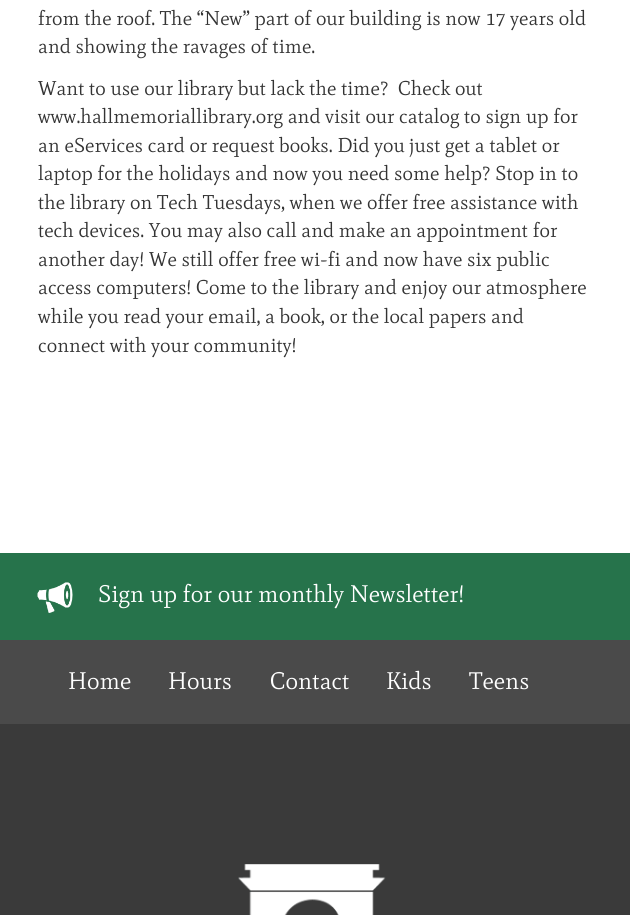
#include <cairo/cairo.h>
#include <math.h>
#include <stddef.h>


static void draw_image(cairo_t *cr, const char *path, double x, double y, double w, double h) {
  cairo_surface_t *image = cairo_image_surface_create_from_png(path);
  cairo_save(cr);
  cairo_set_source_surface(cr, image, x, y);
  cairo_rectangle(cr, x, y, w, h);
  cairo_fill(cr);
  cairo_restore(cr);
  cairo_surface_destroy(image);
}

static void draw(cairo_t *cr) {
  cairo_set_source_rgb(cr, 1, 1, 1);
  cairo_paint(cr);
  cairo_set_source_rgb(cr, 38 / 255.0, 115 / 255.0, 75 / 255.0);
  cairo_rectangle(cr, 0, 553, 630, 87);
  cairo_fill(cr);
  draw_image(cr, "images/1.png", 37, 582, 36, 31);
  cairo_set_source_rgb(cr, 74 / 255.0, 74 / 255.0, 74 / 255.0);
  cairo_rectangle(cr, 0, 640, 630, 84);
  cairo_fill(cr);
  cairo_set_source_rgb(cr, 58 / 255.0, 58 / 255.0, 58 / 255.0);
  cairo_rectangle(cr, 0, 724, 630, 191);
  cairo_fill(cr);
  draw_image(cr, "images/2.png", 238, 864, 148, 51);
  cairo_select_font_face(cr, "Mate", CAIRO_FONT_SLANT_NORMAL, CAIRO_FONT_WEIGHT_NORMAL);
  cairo_set_font_size(cr, 20);
  cairo_set_source_rgb(cr, 51 / 255.0, 51 / 255.0, 51 / 255.0);
  cairo_move_to(cr, 38, 25);
  cairo_show_text(cr, "from the roof. The “New” part of our building is now 17 years old");
  cairo_move_to(cr, 38, 53);
  cairo_show_text(cr, "and showing the ravages of time.");
  cairo_move_to(cr, 38, 95);
  cairo_show_text(cr, "Want to use our library but lack the time?  Check out");
  cairo_move_to(cr, 38, 123);
  cairo_show_text(cr, "www.hallmemoriallibrary.org and visit our catalog to sign up for");
  cairo_move_to(cr, 38, 152);
  cairo_show_text(cr, "an eServices card or request books. Did you just get a tablet or");
  cairo_move_to(cr, 38, 180);
  cairo_show_text(cr, "laptop for the holidays and now you need some help? Stop in to");
  cairo_move_to(cr, 38, 209);
  cairo_show_text(cr, "the library on Tech Tuesdays, when we offer free assistance with");
  cairo_move_to(cr, 38, 237);
  cairo_show_text(cr, "tech devices. You may also call and make an appointment for");
  cairo_move_to(cr, 38, 266);
  cairo_show_text(cr, "another day! We still offer free wi-fi and now have six public");
  cairo_move_to(cr, 38, 294);
  cairo_show_text(cr, "access computers! Come to the library and enjoy our atmosphere");
  cairo_move_to(cr, 38, 323);
  cairo_show_text(cr, "while you read your email, a book, or the local papers and");
  cairo_move_to(cr, 38, 352);
  cairo_show_text(cr, "connect with your community!");
  cairo_set_font_size(cr, 24);
  cairo_set_source_rgb(cr, 1, 1, 1);
  cairo_move_to(cr, 98, 602);
  cairo_show_text(cr, "Sign up for our monthly Newsletter!");
  cairo_move_to(cr, 68, 689);
  cairo_show_text(cr, "Home");
  cairo_move_to(cr, 168, 689);
  cairo_show_text(cr, "Hours");
  cairo_move_to(cr, 270, 689);
  cairo_show_text(cr, "Contact");
  cairo_move_to(cr, 386, 689);
  cairo_show_text(cr, "Kids");
  cairo_move_to(cr, 469, 689);
  cairo_show_text(cr, "Teens");
}

int main(void) {
  cairo_surface_t *surface = cairo_image_surface_create(CAIRO_FORMAT_RGB24, 630, 915);
  cairo_t *cr = cairo_create(surface);
  cairo_font_options_t *options = cairo_font_options_create();
  cairo_font_options_set_hint_metrics(options, CAIRO_HINT_METRICS_OFF);
  cairo_font_options_set_hint_style(options, CAIRO_HINT_STYLE_NONE);
  cairo_set_font_options(cr, options);
  cairo_set_miter_limit(cr, 4);
  draw(cr);
  cairo_surface_write_to_png(surface, "out.png");
  cairo_font_options_destroy(options);
  cairo_destroy(cr);
  cairo_surface_destroy(surface);
  return 0;
}
